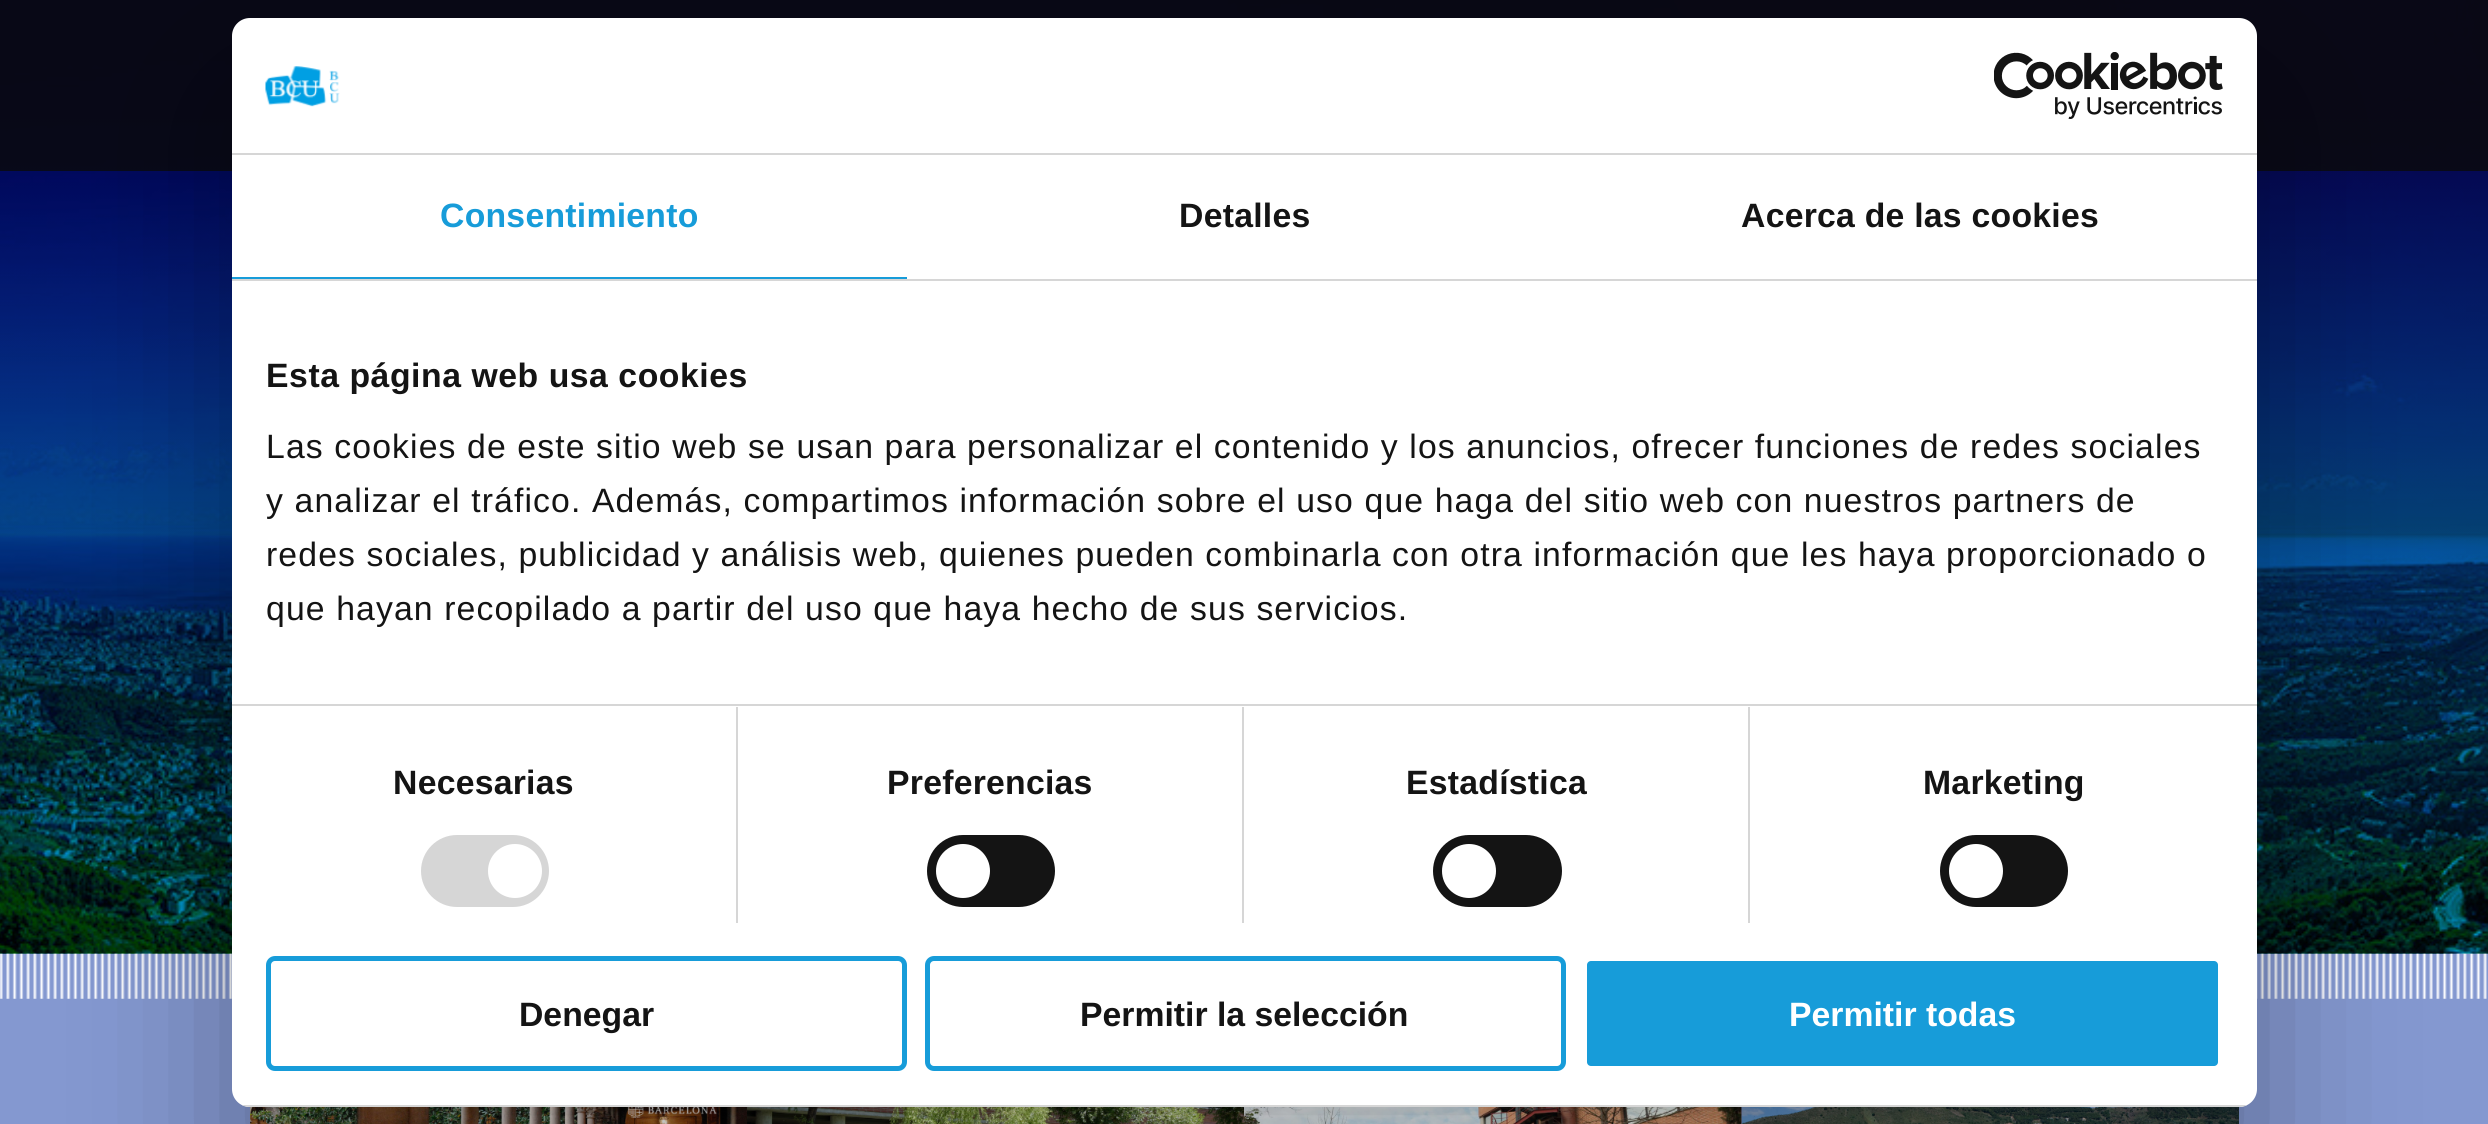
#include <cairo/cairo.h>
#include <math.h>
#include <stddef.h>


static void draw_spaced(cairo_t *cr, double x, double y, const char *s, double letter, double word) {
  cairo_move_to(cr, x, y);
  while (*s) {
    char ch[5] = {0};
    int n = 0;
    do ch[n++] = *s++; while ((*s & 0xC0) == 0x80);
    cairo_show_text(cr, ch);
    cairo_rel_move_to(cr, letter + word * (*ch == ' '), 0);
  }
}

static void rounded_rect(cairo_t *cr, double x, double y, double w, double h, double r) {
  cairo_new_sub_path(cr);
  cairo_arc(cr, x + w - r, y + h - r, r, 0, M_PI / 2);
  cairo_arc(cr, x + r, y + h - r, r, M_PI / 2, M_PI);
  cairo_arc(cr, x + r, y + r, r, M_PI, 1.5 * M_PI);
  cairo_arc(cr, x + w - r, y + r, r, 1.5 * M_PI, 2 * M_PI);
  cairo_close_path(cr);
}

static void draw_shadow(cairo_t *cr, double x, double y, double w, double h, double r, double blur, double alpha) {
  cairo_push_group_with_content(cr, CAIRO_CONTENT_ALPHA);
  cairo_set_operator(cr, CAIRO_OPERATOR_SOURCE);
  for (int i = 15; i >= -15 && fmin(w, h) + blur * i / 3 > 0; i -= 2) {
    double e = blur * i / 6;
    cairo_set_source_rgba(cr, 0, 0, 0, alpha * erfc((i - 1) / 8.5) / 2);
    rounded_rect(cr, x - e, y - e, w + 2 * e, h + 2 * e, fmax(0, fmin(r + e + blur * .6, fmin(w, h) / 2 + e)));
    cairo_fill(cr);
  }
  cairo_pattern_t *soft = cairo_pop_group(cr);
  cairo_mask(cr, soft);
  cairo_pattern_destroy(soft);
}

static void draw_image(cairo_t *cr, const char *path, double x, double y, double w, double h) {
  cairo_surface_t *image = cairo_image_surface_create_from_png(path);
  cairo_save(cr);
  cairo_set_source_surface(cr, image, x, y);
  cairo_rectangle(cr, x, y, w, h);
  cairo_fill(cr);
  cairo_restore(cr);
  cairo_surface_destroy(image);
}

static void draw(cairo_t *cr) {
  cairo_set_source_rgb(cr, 1, 1, 1);
  cairo_paint(cr);
  draw_image(cr, "images/1.png", 0, 0, 2488, 954);
  cairo_set_source_rgb(cr, 132 / 255.0, 152 / 255.0, 208 / 255.0);
  cairo_rectangle(cr, 0, 954, 2488, 170);
  cairo_fill(cr);
  draw_image(cr, "images/2.png", 0, 953, 2487, 46);
  draw_image(cr, "images/3.png", 250, 1107, 497, 17);
  draw_image(cr, "images/4.png", 747, 1107, 497, 17);
  draw_image(cr, "images/5.png", 1244, 1107, 498, 17);
  draw_image(cr, "images/6.png", 1742, 1107, 497, 17);
  cairo_set_source_rgba(cr, 10 / 255.0, 10 / 255.0, 10 / 255.0, 0.82);
  cairo_rectangle(cr, 0, 0, 2488, 171);
  cairo_fill(cr);
  cairo_set_source_rgb(cr, 0, 0, 0);
  draw_shadow(cr, 232, 90, 2025, 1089, 18, 76.5, 0.3);
  cairo_set_source_rgb(cr, 1, 1, 1);
  rounded_rect(cr, 232, 18, 2025, 1089, 18);
  cairo_fill(cr);
  cairo_set_source_rgb(cr, 214 / 255.0, 214 / 255.0, 214 / 255.0);
  cairo_rectangle(cr, 232, 153, 2025, 2);
  cairo_fill(cr);
  draw_image(cr, "images/7.png", 265, 66, 75, 41);
  draw_image(cr, "images/8.png", 1994, 52, 229, 67);
  cairo_rectangle(cr, 232, 279, 2025, 2);
  cairo_fill(cr);
  cairo_set_source_rgb(cr, 23 / 255.0, 156 / 255.0, 217 / 255.0);
  cairo_rectangle(cr, 232, 277, 675, 2);
  cairo_fill(cr);
  cairo_set_source_rgb(cr, 214 / 255.0, 214 / 255.0, 214 / 255.0);
  cairo_rectangle(cr, 232, 704, 2025, 2);
  cairo_fill(cr);
  cairo_rectangle(cr, 736, 707, 2, 216);
  cairo_fill(cr);
  rounded_rect(cr, 421, 835, 128, 72, 36);
  cairo_fill(cr);
  cairo_set_source_rgb(cr, 1, 1, 1);
  cairo_arc(cr, 515, 871, 27, 0, 2 * M_PI);
  cairo_fill(cr);
  cairo_set_source_rgb(cr, 214 / 255.0, 214 / 255.0, 214 / 255.0);
  cairo_rectangle(cr, 1242, 707, 2, 216);
  cairo_fill(cr);
  cairo_set_source_rgb(cr, 20 / 255.0, 20 / 255.0, 20 / 255.0);
  rounded_rect(cr, 927, 835, 128, 72, 36);
  cairo_fill(cr);
  cairo_set_source_rgb(cr, 1, 1, 1);
  cairo_arc(cr, 963, 871, 27, 0, 2 * M_PI);
  cairo_fill(cr);
  cairo_set_source_rgb(cr, 214 / 255.0, 214 / 255.0, 214 / 255.0);
  cairo_rectangle(cr, 1748, 707, 2, 216);
  cairo_fill(cr);
  cairo_set_source_rgb(cr, 20 / 255.0, 20 / 255.0, 20 / 255.0);
  rounded_rect(cr, 1433, 835, 129, 72, 36);
  cairo_fill(cr);
  cairo_set_source_rgb(cr, 1, 1, 1);
  cairo_arc(cr, 1469, 871, 27, 0, 2 * M_PI);
  cairo_fill(cr);
  cairo_set_source_rgb(cr, 20 / 255.0, 20 / 255.0, 20 / 255.0);
  rounded_rect(cr, 1940, 835, 128, 72, 36);
  cairo_fill(cr);
  cairo_set_source_rgb(cr, 1, 1, 1);
  cairo_arc(cr, 1976, 871, 27, 0, 2 * M_PI);
  cairo_fill(cr);
  cairo_save(cr);
  rounded_rect(cr, 232, 18, 2025, 1089, 18);
  cairo_clip(cr);
  cairo_set_source_rgb(cr, 214 / 255.0, 214 / 255.0, 214 / 255.0);
  cairo_rectangle(cr, 242, 1105, 2005, 2);
  cairo_fill(cr);
  cairo_restore(cr);
  rounded_rect(cr, 268.5, 958.5, 636, 110, 6.5);
  cairo_set_source_rgb(cr, 23 / 255.0, 156 / 255.0, 217 / 255.0);
  cairo_set_line_width(cr, 5);
  cairo_stroke(cr);
  rounded_rect(cr, 927.5, 958.5, 636, 110, 6.5);
  cairo_stroke(cr);
  rounded_rect(cr, 1584.5, 958.5, 636, 110, 6.5);
  cairo_fill_preserve(cr);
  cairo_set_source_rgb(cr, 1, 1, 1);
  cairo_stroke(cr);
  cairo_select_font_face(cr, "Liberation Sans", CAIRO_FONT_SLANT_NORMAL, CAIRO_FONT_WEIGHT_BOLD);
  cairo_set_font_size(cr, 33.75);
  cairo_set_source_rgb(cr, 23 / 255.0, 156 / 255.0, 217 / 255.0);
  draw_spaced(cr, 440, 227, "Consentimiento", 0.25, 0);
  cairo_set_source_rgb(cr, 20 / 255.0, 20 / 255.0, 20 / 255.0);
  draw_spaced(cr, 1179, 227, "Detalles", 0.25, 0);
  draw_spaced(cr, 1741, 227, "Acerca de las cookies", 0.25, 0);
  draw_spaced(cr, 266, 387, "Esta página web usa cookies", 0.55, 0);
  cairo_select_font_face(cr, "Liberation Sans", CAIRO_FONT_SLANT_NORMAL, CAIRO_FONT_WEIGHT_NORMAL);
  draw_spaced(cr, 266, 458, "Las cookies de este sitio web se usan para personalizar el contenido y los anuncios, ofrecer funciones de redes sociales", 1.12, 0);
  draw_spaced(cr, 266, 512, "y analizar el tráfico. Además, compartimos información sobre el uso que haga del sitio web con nuestros partners de", 1.12, 0);
  draw_spaced(cr, 266, 566, "redes sociales, publicidad y análisis web, quienes pueden combinarla con otra información que les haya proporcionado o", 1.12, 0);
  draw_spaced(cr, 266, 620, "que hayan recopilado a partir del uso que haya hecho de sus servicios.", 1.12, 0);
  cairo_select_font_face(cr, "Liberation Sans", CAIRO_FONT_SLANT_NORMAL, CAIRO_FONT_WEIGHT_BOLD);
  draw_spaced(cr, 393, 794, "Necesarias", 0.25, 0);
  draw_spaced(cr, 887, 794, "Preferencias", 0.25, 0);
  draw_spaced(cr, 1406, 794, "Estadística", 0.25, 0);
  draw_spaced(cr, 1923, 794, "Marketing", 0.25, 0);
  cairo_move_to(cr, 519, 1026);
  cairo_show_text(cr, "Denegar");
  cairo_move_to(cr, 1080, 1026);
  cairo_show_text(cr, "Permitir la selección");
  cairo_set_source_rgb(cr, 1, 1, 1);
  cairo_move_to(cr, 1789, 1026);
  cairo_show_text(cr, "Permitir todas");
}

int main(void) {
  cairo_surface_t *surface = cairo_image_surface_create(CAIRO_FORMAT_RGB24, 2488, 1124);
  cairo_t *cr = cairo_create(surface);
  cairo_font_options_t *options = cairo_font_options_create();
  cairo_font_options_set_hint_metrics(options, CAIRO_HINT_METRICS_OFF);
  cairo_font_options_set_hint_style(options, CAIRO_HINT_STYLE_NONE);
  cairo_set_font_options(cr, options);
  cairo_set_miter_limit(cr, 4);
  draw(cr);
  cairo_surface_write_to_png(surface, "out.png");
  cairo_font_options_destroy(options);
  cairo_destroy(cr);
  cairo_surface_destroy(surface);
  return 0;
}
